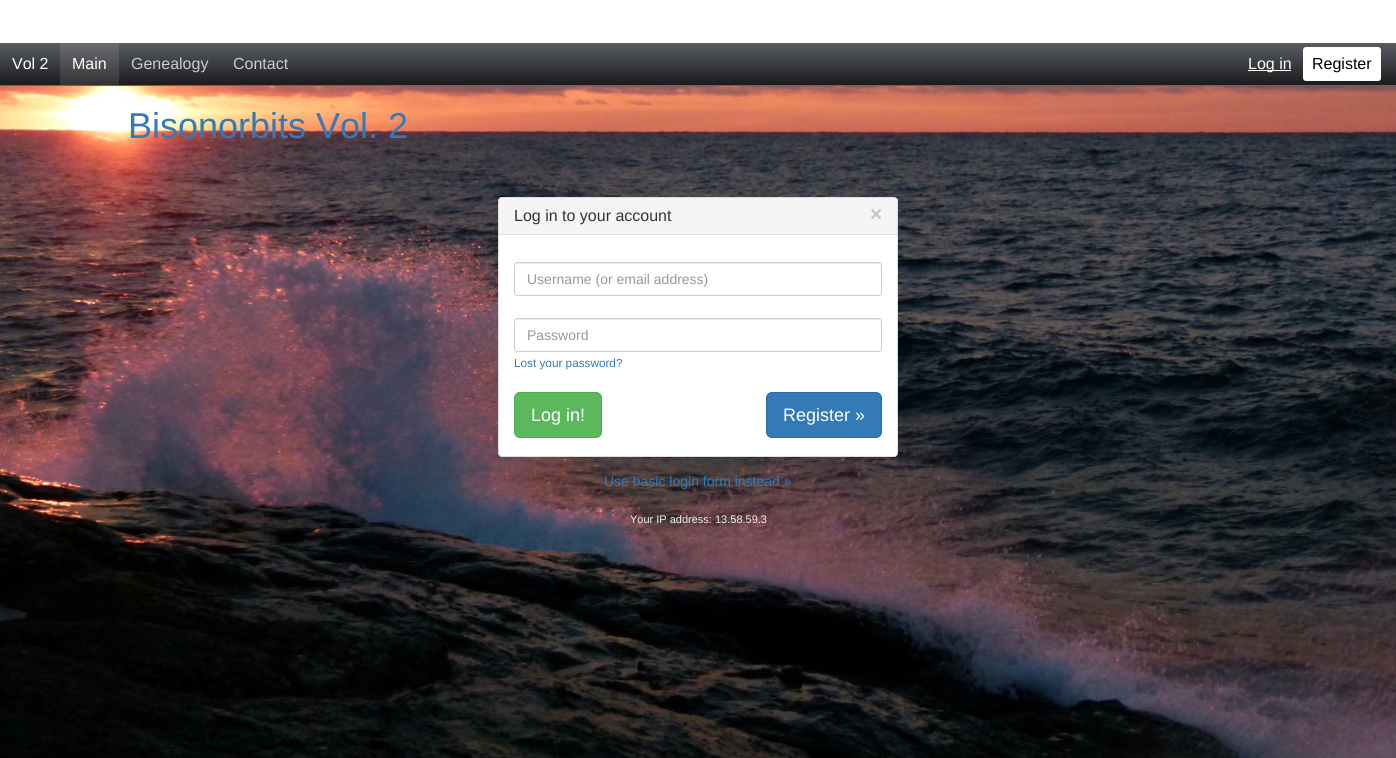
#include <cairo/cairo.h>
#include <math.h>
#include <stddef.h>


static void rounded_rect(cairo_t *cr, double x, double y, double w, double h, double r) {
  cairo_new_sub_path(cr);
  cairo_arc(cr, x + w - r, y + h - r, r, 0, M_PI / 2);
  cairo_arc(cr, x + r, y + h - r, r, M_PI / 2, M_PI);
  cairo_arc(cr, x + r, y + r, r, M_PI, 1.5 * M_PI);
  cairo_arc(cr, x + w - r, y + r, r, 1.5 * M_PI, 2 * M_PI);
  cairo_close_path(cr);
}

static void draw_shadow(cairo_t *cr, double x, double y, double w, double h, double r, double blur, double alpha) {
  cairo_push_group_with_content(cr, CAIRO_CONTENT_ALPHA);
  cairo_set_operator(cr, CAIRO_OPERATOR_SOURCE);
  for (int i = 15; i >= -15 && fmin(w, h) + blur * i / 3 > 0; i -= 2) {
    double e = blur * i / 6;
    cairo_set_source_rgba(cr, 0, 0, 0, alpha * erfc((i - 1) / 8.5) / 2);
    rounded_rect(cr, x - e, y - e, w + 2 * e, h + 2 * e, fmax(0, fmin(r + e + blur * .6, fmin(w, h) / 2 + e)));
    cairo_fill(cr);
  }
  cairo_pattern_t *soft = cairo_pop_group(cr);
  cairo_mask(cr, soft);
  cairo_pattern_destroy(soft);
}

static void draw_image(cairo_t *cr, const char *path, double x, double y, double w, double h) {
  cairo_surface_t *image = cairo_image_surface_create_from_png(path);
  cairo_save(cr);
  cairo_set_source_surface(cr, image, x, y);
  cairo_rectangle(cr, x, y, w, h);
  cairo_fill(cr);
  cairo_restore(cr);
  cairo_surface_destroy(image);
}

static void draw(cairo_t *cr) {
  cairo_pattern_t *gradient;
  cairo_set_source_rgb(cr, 1, 1, 1);
  cairo_paint(cr);
  gradient = cairo_pattern_create_linear(698, 43, 698, 85);
  cairo_pattern_add_color_stop_rgba(gradient, 0, 89 / 255.0, 92 / 255.0, 100 / 255.0, 1);
  cairo_pattern_add_color_stop_rgba(gradient, 1, 27 / 255.0, 27 / 255.0, 28 / 255.0, 1);
  cairo_set_source(cr, gradient);
  cairo_pattern_destroy(gradient);
  cairo_rectangle(cr, 0, 43, 1396, 42);
  cairo_fill(cr);
  cairo_set_source_rgb(cr, 102 / 255.0, 102 / 255.0, 102 / 255.0);
  cairo_rectangle(cr, 0, 85, 1396, 1);
  cairo_fill(cr);
  gradient = cairo_pattern_create_linear(90, 43, 90, 85);
  cairo_pattern_add_color_stop_rgba(gradient, 0, 105 / 255.0, 108 / 255.0, 114 / 255.0, 1);
  cairo_pattern_add_color_stop_rgba(gradient, 1, 51 / 255.0, 51 / 255.0, 52 / 255.0, 1);
  cairo_set_source(cr, gradient);
  cairo_pattern_destroy(gradient);
  cairo_rectangle(cr, 60, 43, 59, 42);
  cairo_fill(cr);
  cairo_set_source_rgb(cr, 1, 1, 1);
  cairo_rectangle(cr, 1248, 70, 43, 1);
  cairo_fill(cr);
  rounded_rect(cr, 1303, 47, 78, 34, 3);
  cairo_fill(cr);
  draw_image(cr, "images/1.png", 0, 86, 1396, 672);
  cairo_set_source_rgb(cr, 0, 0, 0);
  draw_shadow(cr, 498, 198, 400, 260, 4, 0.5, 0.05);
  cairo_set_source_rgb(cr, 1, 1, 1);
  rounded_rect(cr, 498.5, 197.5, 399, 259, 3.5);
  cairo_fill_preserve(cr);
  cairo_set_source_rgb(cr, 221 / 255.0, 221 / 255.0, 221 / 255.0);
  cairo_set_line_width(cr, 1);
  cairo_stroke(cr);
  cairo_set_source_rgb(cr, 245 / 255.0, 245 / 255.0, 245 / 255.0);
  cairo_new_path(cr);
  cairo_move_to(cr, 502, 198);
  cairo_line_to(cr, 894, 198);
  cairo_curve_to(cr, 895.5, 198, 897, 199.5, 897, 201);
  cairo_line_to(cr, 897, 235);
  cairo_line_to(cr, 499, 235);
  cairo_line_to(cr, 499, 201);
  cairo_curve_to(cr, 499, 199.5, 500.5, 198, 502, 198);
  cairo_close_path(cr);
  cairo_fill(cr);
  cairo_set_source_rgb(cr, 221 / 255.0, 221 / 255.0, 221 / 255.0);
  cairo_rectangle(cr, 499, 234, 398, 1);
  cairo_fill(cr);
  cairo_set_source_rgb(cr, 236 / 255.0, 236 / 255.0, 236 / 255.0);
  cairo_new_path(cr);
  cairo_move_to(cr, 518, 264);
  cairo_line_to(cr, 878, 264);
  cairo_curve_to(cr, 880, 264, 881, 265, 881, 267);
  cairo_curve_to(cr, 881, 265, 880, 263, 878, 263);
  cairo_line_to(cr, 518, 263);
  cairo_line_to(cr, 516, 264);
  cairo_line_to(cr, 515, 267);
  cairo_curve_to(cr, 515, 265, 516, 264, 518, 264);
  cairo_close_path(cr);
  cairo_fill(cr);
  rounded_rect(cr, 514.5, 262.5, 367, 33, 3.5);
  cairo_set_source_rgb(cr, 204 / 255.0, 204 / 255.0, 204 / 255.0);
  cairo_stroke(cr);
  cairo_set_source_rgb(cr, 236 / 255.0, 236 / 255.0, 236 / 255.0);
  cairo_new_path(cr);
  cairo_move_to(cr, 518, 320);
  cairo_line_to(cr, 878, 320);
  cairo_curve_to(cr, 880, 320, 881, 321, 881, 323);
  cairo_curve_to(cr, 881, 321, 880, 319, 878, 319);
  cairo_line_to(cr, 518, 319);
  cairo_line_to(cr, 516, 320);
  cairo_line_to(cr, 515, 323);
  cairo_curve_to(cr, 515, 321, 516, 320, 518, 320);
  cairo_close_path(cr);
  cairo_fill(cr);
  rounded_rect(cr, 514.5, 318.5, 367, 33, 3.5);
  cairo_set_source_rgb(cr, 204 / 255.0, 204 / 255.0, 204 / 255.0);
  cairo_stroke(cr);
  cairo_set_source_rgb(cr, 92 / 255.0, 184 / 255.0, 92 / 255.0);
  rounded_rect(cr, 514.5, 392.5, 87, 45, 5.5);
  cairo_fill_preserve(cr);
  cairo_set_source_rgb(cr, 76 / 255.0, 174 / 255.0, 76 / 255.0);
  cairo_stroke(cr);
  cairo_set_source_rgb(cr, 51 / 255.0, 122 / 255.0, 183 / 255.0);
  rounded_rect(cr, 766.5, 392.5, 115, 45, 5.5);
  cairo_fill_preserve(cr);
  cairo_set_source_rgb(cr, 46 / 255.0, 109 / 255.0, 164 / 255.0);
  cairo_stroke(cr);
  cairo_select_font_face(cr, "Liberation Sans", CAIRO_FONT_SLANT_NORMAL, CAIRO_FONT_WEIGHT_NORMAL);
  cairo_set_font_size(cr, 16);
  cairo_set_source_rgb(cr, 1, 1, 1);
  cairo_move_to(cr, 12, 69);
  cairo_show_text(cr, "Vol 2");
  cairo_move_to(cr, 72, 69);
  cairo_show_text(cr, "Main");
  cairo_set_source_rgb(cr, 204 / 255.0, 204 / 255.0, 204 / 255.0);
  cairo_move_to(cr, 131, 69);
  cairo_show_text(cr, "Genealogy");
  cairo_move_to(cr, 233, 69);
  cairo_show_text(cr, "Contact");
  cairo_set_source_rgb(cr, 1, 1, 1);
  cairo_move_to(cr, 1248, 69);
  cairo_show_text(cr, "Log in");
  cairo_set_source_rgb(cr, 0, 0, 0);
  cairo_move_to(cr, 1312, 69);
  cairo_show_text(cr, "Register");
  cairo_set_font_size(cr, 36);
  cairo_set_source_rgb(cr, 51 / 255.0, 122 / 255.0, 183 / 255.0);
  cairo_move_to(cr, 128, 138);
  cairo_show_text(cr, "Bisonorbits Vol. 2");
  cairo_set_font_size(cr, 16);
  cairo_set_source_rgb(cr, 51 / 255.0, 51 / 255.0, 51 / 255.0);
  cairo_move_to(cr, 514, 221);
  cairo_show_text(cr, "Log in to your account");
  cairo_select_font_face(cr, "Liberation Sans", CAIRO_FONT_SLANT_NORMAL, CAIRO_FONT_WEIGHT_BOLD);
  cairo_set_font_size(cr, 21);
  cairo_set_source_rgb(cr, 196 / 255.0, 196 / 255.0, 196 / 255.0);
  cairo_move_to(cr, 870, 221);
  cairo_show_text(cr, "×");
  cairo_select_font_face(cr, "Liberation Sans", CAIRO_FONT_SLANT_NORMAL, CAIRO_FONT_WEIGHT_NORMAL);
  cairo_set_font_size(cr, 14);
  cairo_set_source_rgb(cr, 153 / 255.0, 153 / 255.0, 153 / 255.0);
  cairo_move_to(cr, 527, 284);
  cairo_show_text(cr, "Username (or email address)");
  cairo_move_to(cr, 527, 340);
  cairo_show_text(cr, "Password");
  cairo_set_font_size(cr, 11.75);
  cairo_set_source_rgb(cr, 51 / 255.0, 122 / 255.0, 183 / 255.0);
  cairo_move_to(cr, 514, 367);
  cairo_show_text(cr, "Lost your password?");
  cairo_set_font_size(cr, 18);
  cairo_set_source_rgb(cr, 1, 1, 1);
  cairo_move_to(cr, 531, 421);
  cairo_show_text(cr, "Log in!");
  cairo_move_to(cr, 783, 421);
  cairo_show_text(cr, "Register »");
  cairo_set_font_size(cr, 14);
  cairo_set_source_rgb(cr, 51 / 255.0, 122 / 255.0, 183 / 255.0);
  cairo_move_to(cr, 604, 486);
  cairo_show_text(cr, "Use basic login form instead »");
  cairo_set_font_size(cr, 11);
  cairo_set_source_rgb(cr, 240 / 255.0, 240 / 255.0, 240 / 255.0);
  cairo_move_to(cr, 630, 523);
  cairo_show_text(cr, "Your IP address: 13.58.59.3");
}

int main(void) {
  cairo_surface_t *surface = cairo_image_surface_create(CAIRO_FORMAT_RGB24, 1396, 758);
  cairo_t *cr = cairo_create(surface);
  cairo_font_options_t *options = cairo_font_options_create();
  cairo_font_options_set_hint_metrics(options, CAIRO_HINT_METRICS_OFF);
  cairo_font_options_set_hint_style(options, CAIRO_HINT_STYLE_NONE);
  cairo_set_font_options(cr, options);
  cairo_set_miter_limit(cr, 4);
  draw(cr);
  cairo_surface_write_to_png(surface, "out.png");
  cairo_font_options_destroy(options);
  cairo_destroy(cr);
  cairo_surface_destroy(surface);
  return 0;
}
